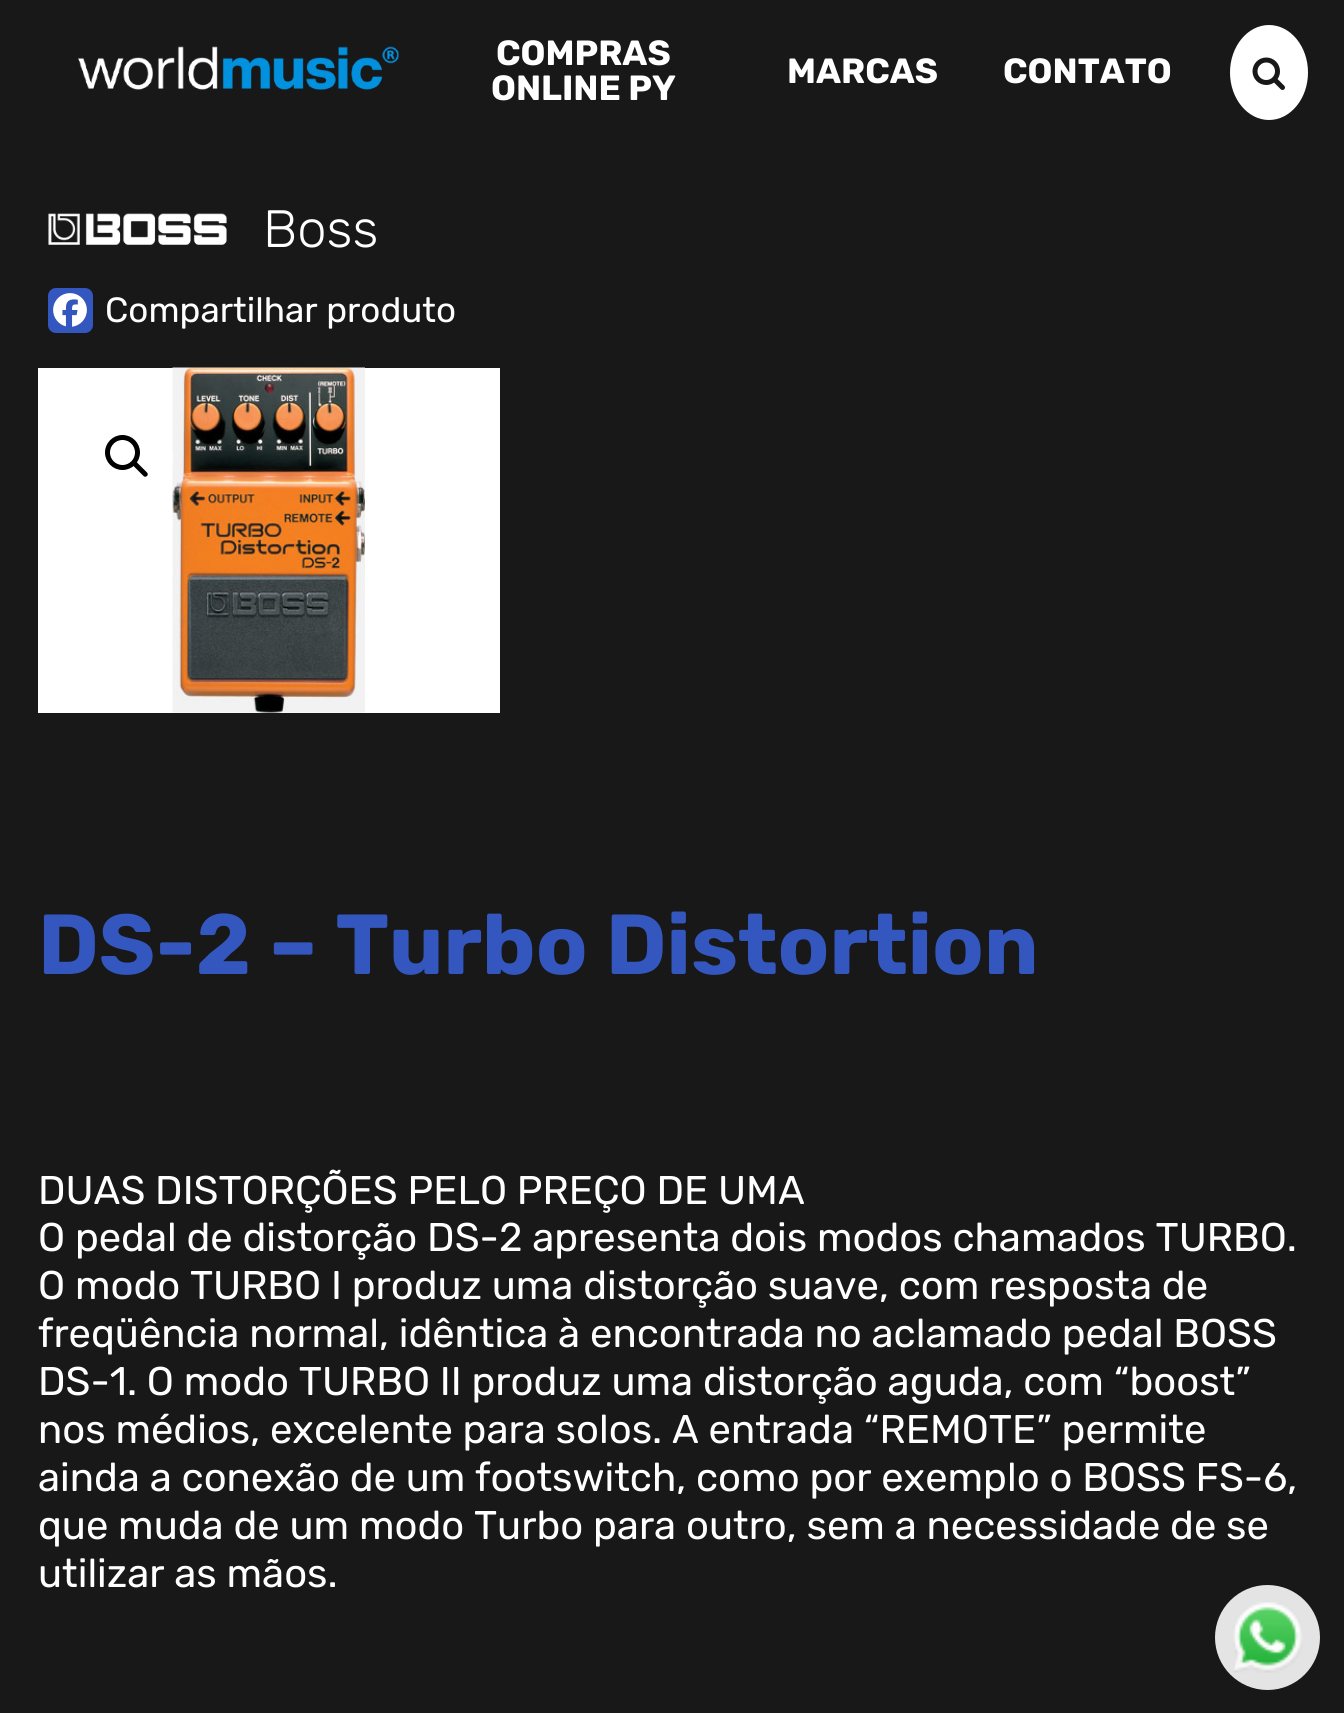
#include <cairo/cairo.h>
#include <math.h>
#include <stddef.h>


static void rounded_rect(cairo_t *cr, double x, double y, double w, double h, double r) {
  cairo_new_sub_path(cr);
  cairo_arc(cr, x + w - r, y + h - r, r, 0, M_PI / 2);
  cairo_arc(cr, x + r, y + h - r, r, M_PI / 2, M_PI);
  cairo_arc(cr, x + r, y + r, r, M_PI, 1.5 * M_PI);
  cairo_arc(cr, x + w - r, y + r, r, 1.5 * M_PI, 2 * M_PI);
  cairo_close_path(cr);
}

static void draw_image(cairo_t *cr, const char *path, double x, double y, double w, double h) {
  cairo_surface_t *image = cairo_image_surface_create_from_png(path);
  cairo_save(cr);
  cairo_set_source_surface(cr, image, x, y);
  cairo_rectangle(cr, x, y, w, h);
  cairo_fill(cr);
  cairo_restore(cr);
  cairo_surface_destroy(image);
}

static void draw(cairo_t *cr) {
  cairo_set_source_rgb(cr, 24 / 255.0, 24 / 255.0, 24 / 255.0);
  cairo_paint(cr);
  draw_image(cr, "images/1.png", 78, 46, 321, 44);
  cairo_set_source_rgb(cr, 1, 1, 1);
  cairo_new_path(cr);
  cairo_move_to(cr, 1269, 25);
  cairo_curve_to(cr, 1290.5, 25, 1308, 46.5, 1308, 72.5);
  cairo_curve_to(cr, 1308, 98.5, 1290.5, 120, 1269, 120);
  cairo_curve_to(cr, 1247.5, 120, 1230, 98.5, 1230, 72.5);
  cairo_curve_to(cr, 1230, 46.5, 1247.5, 25, 1269, 25);
  cairo_close_path(cr);
  cairo_fill(cr);
  draw_image(cr, "images/2.png", 1252, 57, 33, 33);
  draw_image(cr, "images/3.png", 48, 213, 179, 32);
  cairo_set_source_rgb(cr, 52 / 255.0, 87 / 255.0, 191 / 255.0);
  rounded_rect(cr, 48, 288, 45, 45, 8);
  cairo_fill(cr);
  draw_image(cr, "images/4.png", 53, 293, 34, 34);
  cairo_set_source_rgb(cr, 1, 1, 1);
  cairo_rectangle(cr, 38, 368, 462, 345);
  cairo_fill(cr);
  draw_image(cr, "images/5.png", 172, 367, 193, 346);
  cairo_arc(cr, 128, 458, 45, 0, 2 * M_PI);
  cairo_fill(cr);
  cairo_arc(cr, 122.5, 452.5, 15, 0, 2 * M_PI);
  cairo_set_source_rgb(cr, 0, 0, 0);
  cairo_set_line_width(cr, 5);
  cairo_stroke(cr);
  cairo_new_path(cr);
  cairo_move_to(cr, 133, 462);
  cairo_curve_to(cr, 134, 461, 135.5, 461, 136.5, 462);
  cairo_line_to(cr, 147, 472.5);
  cairo_curve_to(cr, 148, 473.5, 148, 475, 147, 476);
  cairo_curve_to(cr, 146, 477, 144.5, 477, 143.5, 476);
  cairo_line_to(cr, 133, 465.5);
  cairo_curve_to(cr, 132, 464.5, 132, 463, 133, 462);
  cairo_close_path(cr);
  cairo_fill(cr);
  cairo_set_source_rgb(cr, 228 / 255.0, 228 / 255.0, 228 / 255.0);
  cairo_arc(cr, 1267.5, 1637.5, 52.5, 0, 2 * M_PI);
  cairo_fill(cr);
  draw_image(cr, "images/6.png", 1233, 1602, 70, 71);
  cairo_select_font_face(cr, "Rubik", CAIRO_FONT_SLANT_NORMAL, CAIRO_FONT_WEIGHT_BOLD);
  cairo_set_font_size(cr, 35);
  cairo_set_source_rgb(cr, 1, 1, 1);
  cairo_move_to(cr, 496, 65);
  cairo_show_text(cr, "COMPRAS");
  cairo_move_to(cr, 491, 100);
  cairo_show_text(cr, "ONLINE PY");
  cairo_move_to(cr, 787, 83);
  cairo_show_text(cr, "MARCAS");
  cairo_move_to(cr, 1003, 83);
  cairo_show_text(cr, "CONTATO");
  cairo_select_font_face(cr, "Rubik Light", CAIRO_FONT_SLANT_NORMAL, CAIRO_FONT_WEIGHT_NORMAL);
  cairo_set_font_size(cr, 52.5);
  cairo_move_to(cr, 263, 247);
  cairo_show_text(cr, "Boss");
  cairo_select_font_face(cr, "Rubik", CAIRO_FONT_SLANT_NORMAL, CAIRO_FONT_WEIGHT_NORMAL);
  cairo_set_font_size(cr, 35);
  cairo_move_to(cr, 105, 322);
  cairo_show_text(cr, "Compartilhar produto");
  cairo_select_font_face(cr, "Rubik", CAIRO_FONT_SLANT_NORMAL, CAIRO_FONT_WEIGHT_BOLD);
  cairo_set_font_size(cr, 85);
  cairo_set_source_rgb(cr, 52 / 255.0, 87 / 255.0, 191 / 255.0);
  cairo_move_to(cr, 38, 974);
  cairo_show_text(cr, "DS-2 – Turbo Distortion");
  cairo_select_font_face(cr, "Rubik", CAIRO_FONT_SLANT_NORMAL, CAIRO_FONT_WEIGHT_NORMAL);
  cairo_set_font_size(cr, 40);
  cairo_set_source_rgb(cr, 1, 1, 1);
  cairo_move_to(cr, 38, 1204);
  cairo_show_text(cr, "DUAS DISTORÇÕES PELO PREÇO DE UMA");
  cairo_move_to(cr, 38, 1251);
  cairo_show_text(cr, "O pedal de distorção DS-2 apresenta dois modos chamados TURBO.");
  cairo_move_to(cr, 38, 1299);
  cairo_show_text(cr, "O modo TURBO I produz uma distorção suave, com resposta de");
  cairo_move_to(cr, 38, 1347);
  cairo_show_text(cr, "freqüência normal, idêntica à encontrada no aclamado pedal BOSS");
  cairo_move_to(cr, 38, 1395);
  cairo_show_text(cr, "DS-1. O modo TURBO II produz uma distorção aguda, com “boost”");
  cairo_move_to(cr, 38, 1443);
  cairo_show_text(cr, "nos médios, excelente para solos. A entrada “REMOTE” permite");
  cairo_move_to(cr, 38, 1491);
  cairo_show_text(cr, "ainda a conexão de um footswitch, como por exemplo o BOSS FS-6,");
  cairo_move_to(cr, 38, 1539);
  cairo_show_text(cr, "que muda de um modo Turbo para outro, sem a necessidade de se");
  cairo_move_to(cr, 38, 1587);
  cairo_show_text(cr, "utilizar as mãos.");
}

int main(void) {
  cairo_surface_t *surface = cairo_image_surface_create(CAIRO_FORMAT_RGB24, 1344, 1713);
  cairo_t *cr = cairo_create(surface);
  cairo_font_options_t *options = cairo_font_options_create();
  cairo_font_options_set_hint_metrics(options, CAIRO_HINT_METRICS_OFF);
  cairo_font_options_set_hint_style(options, CAIRO_HINT_STYLE_NONE);
  cairo_set_font_options(cr, options);
  cairo_set_miter_limit(cr, 4);
  draw(cr);
  cairo_surface_write_to_png(surface, "out.png");
  cairo_font_options_destroy(options);
  cairo_destroy(cr);
  cairo_surface_destroy(surface);
  return 0;
}
